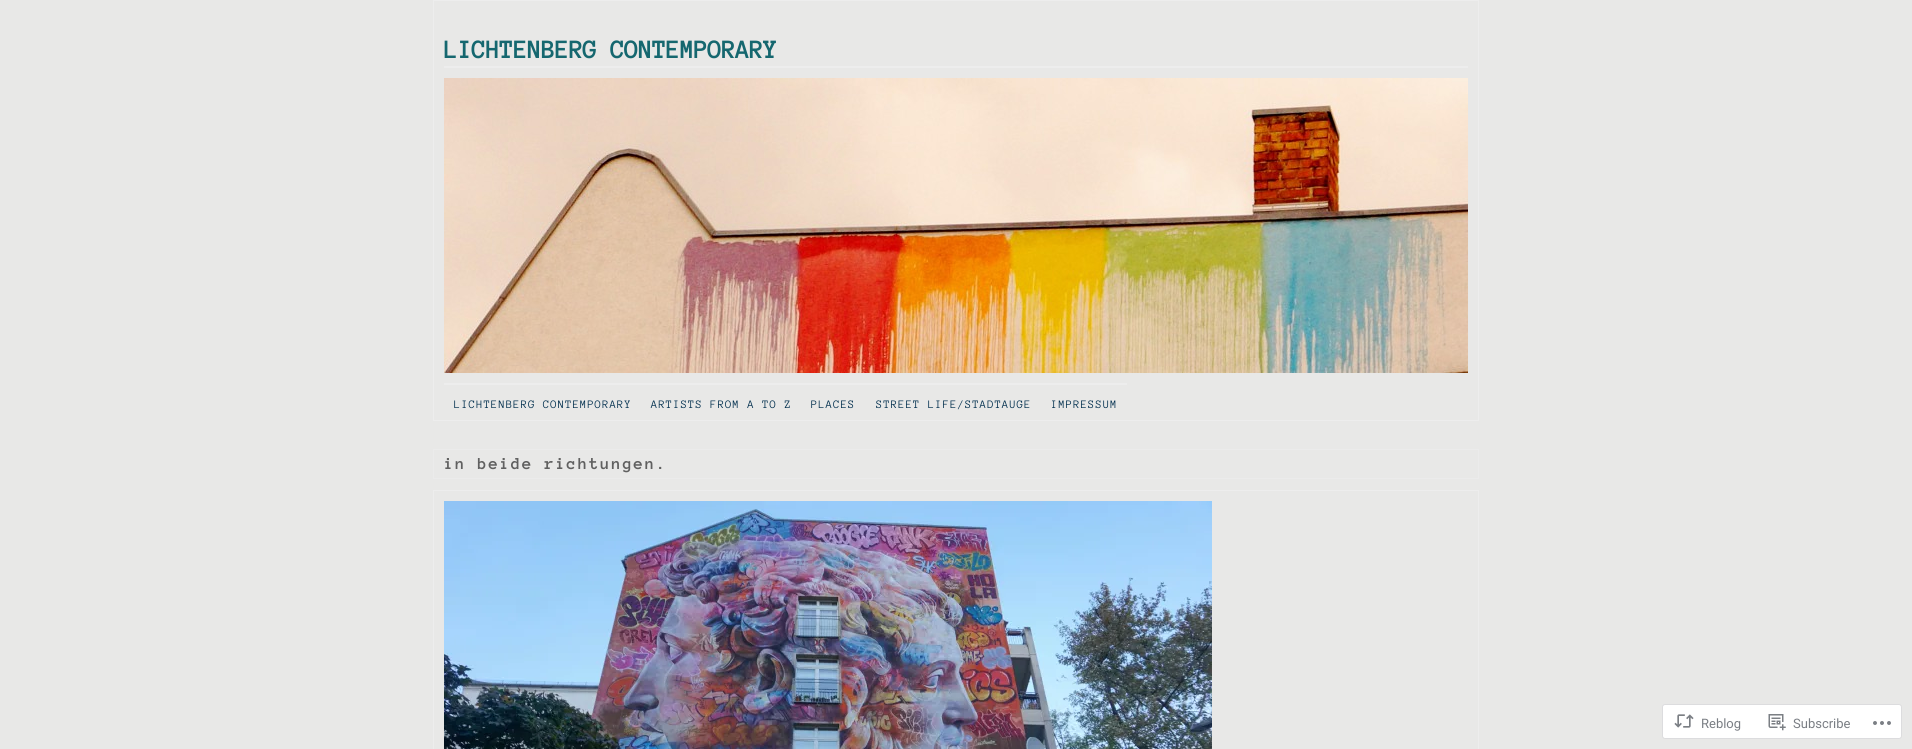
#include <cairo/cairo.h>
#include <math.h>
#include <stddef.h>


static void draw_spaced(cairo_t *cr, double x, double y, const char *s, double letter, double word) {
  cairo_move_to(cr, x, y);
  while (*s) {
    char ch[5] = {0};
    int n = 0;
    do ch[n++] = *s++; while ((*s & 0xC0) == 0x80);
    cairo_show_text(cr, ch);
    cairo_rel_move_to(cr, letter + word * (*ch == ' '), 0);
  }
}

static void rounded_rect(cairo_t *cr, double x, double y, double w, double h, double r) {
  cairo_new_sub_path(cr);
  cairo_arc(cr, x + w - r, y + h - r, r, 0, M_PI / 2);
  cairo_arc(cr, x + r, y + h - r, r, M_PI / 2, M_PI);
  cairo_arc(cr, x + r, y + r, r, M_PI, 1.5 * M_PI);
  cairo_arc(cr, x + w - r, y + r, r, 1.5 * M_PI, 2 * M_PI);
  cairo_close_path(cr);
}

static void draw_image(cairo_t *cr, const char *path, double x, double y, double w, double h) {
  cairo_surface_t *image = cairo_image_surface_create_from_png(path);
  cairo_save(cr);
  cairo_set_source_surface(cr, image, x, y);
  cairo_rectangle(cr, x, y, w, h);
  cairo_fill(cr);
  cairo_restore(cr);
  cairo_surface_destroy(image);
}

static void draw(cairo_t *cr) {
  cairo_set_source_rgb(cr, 232 / 255.0, 232 / 255.0, 231 / 255.0);
  cairo_paint(cr);
  cairo_rectangle(cr, 433.5, 0.5, 1045, 420);
  cairo_set_source_rgb(cr, 237 / 255.0, 237 / 255.0, 237 / 255.0);
  cairo_set_line_width(cr, 1);
  cairo_stroke(cr);
  cairo_rectangle(cr, 444, 66, 1024, 2);
  cairo_fill(cr);
  draw_image(cr, "images/1.png", 444, 78, 1024, 295);
  cairo_rectangle(cr, 444, 383, 683, 2);
  cairo_fill(cr);
  cairo_rectangle(cr, 433.5, 449.5, 1045, 29);
  cairo_set_source_rgb(cr, 235 / 255.0, 235 / 255.0, 235 / 255.0);
  cairo_stroke(cr);
  cairo_rectangle(cr, 433.5, 490.5, 1045, 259);
  cairo_set_source_rgb(cr, 237 / 255.0, 237 / 255.0, 237 / 255.0);
  cairo_stroke(cr);
  draw_image(cr, "images/2.png", 444, 501, 768, 248);
  cairo_set_source_rgb(cr, 1, 1, 1);
  rounded_rect(cr, 1662.5, 704.5, 239, 34, 2.5);
  cairo_fill_preserve(cr);
  cairo_set_source_rgb(cr, 220 / 255.0, 220 / 255.0, 222 / 255.0);
  cairo_stroke(cr);
  draw_image(cr, "images/3.png", 1674, 714, 20, 14);
  draw_image(cr, "images/4.png", 1768, 714, 18, 17);
  draw_image(cr, "images/5.png", 1873, 721, 18, 4);
  cairo_select_font_face(cr, "Anonymous Pro", CAIRO_FONT_SLANT_NORMAL, CAIRO_FONT_WEIGHT_BOLD);
  cairo_set_font_size(cr, 27.25);
  cairo_set_source_rgb(cr, 21 / 255.0, 103 / 255.0, 111 / 255.0);
  draw_spaced(cr, 444, 58, "LICHTENBERG CONTEMPORARY", -1, 0);
  cairo_select_font_face(cr, "Anonymous Pro", CAIRO_FONT_SLANT_NORMAL, CAIRO_FONT_WEIGHT_NORMAL);
  cairo_set_font_size(cr, 11.75);
  cairo_set_source_rgb(cr, 0, 46 / 255.0, 77 / 255.0);
  draw_spaced(cr, 454, 408, "LICHTENBERG CONTEMPORARY", 1, 0);
  draw_spaced(cr, 651, 408, "ARTISTS FROM A TO Z", 1, 0);
  draw_spaced(cr, 811, 408, "PLACES", 1, 0);
  draw_spaced(cr, 876, 408, "STREET LIFE/STADTAUGE", 1, 0);
  draw_spaced(cr, 1051, 408, "IMPRESSUM", 1, 0);
  cairo_select_font_face(cr, "Anonymous Pro", CAIRO_FONT_SLANT_NORMAL, CAIRO_FONT_WEIGHT_BOLD);
  cairo_set_font_size(cr, 17.25);
  cairo_set_source_rgb(cr, 96 / 255.0, 96 / 255.0, 96 / 255.0);
  draw_spaced(cr, 444, 469, "in beide richtungen.", 1.75, 0);
  cairo_select_font_face(cr, "Roboto", CAIRO_FONT_SLANT_NORMAL, CAIRO_FONT_WEIGHT_NORMAL);
  cairo_set_font_size(cr, 13);
  cairo_set_source_rgb(cr, 122 / 255.0, 126 / 255.0, 132 / 255.0);
  cairo_move_to(cr, 1701, 728);
  cairo_show_text(cr, "Reblog");
  cairo_move_to(cr, 1793, 728);
  cairo_show_text(cr, "Subscribe");
}

int main(void) {
  cairo_surface_t *surface = cairo_image_surface_create(CAIRO_FORMAT_RGB24, 1912, 749);
  cairo_t *cr = cairo_create(surface);
  cairo_font_options_t *options = cairo_font_options_create();
  cairo_font_options_set_hint_metrics(options, CAIRO_HINT_METRICS_OFF);
  cairo_font_options_set_hint_style(options, CAIRO_HINT_STYLE_NONE);
  cairo_set_font_options(cr, options);
  cairo_set_miter_limit(cr, 4);
  draw(cr);
  cairo_surface_write_to_png(surface, "out.png");
  cairo_font_options_destroy(options);
  cairo_destroy(cr);
  cairo_surface_destroy(surface);
  return 0;
}
